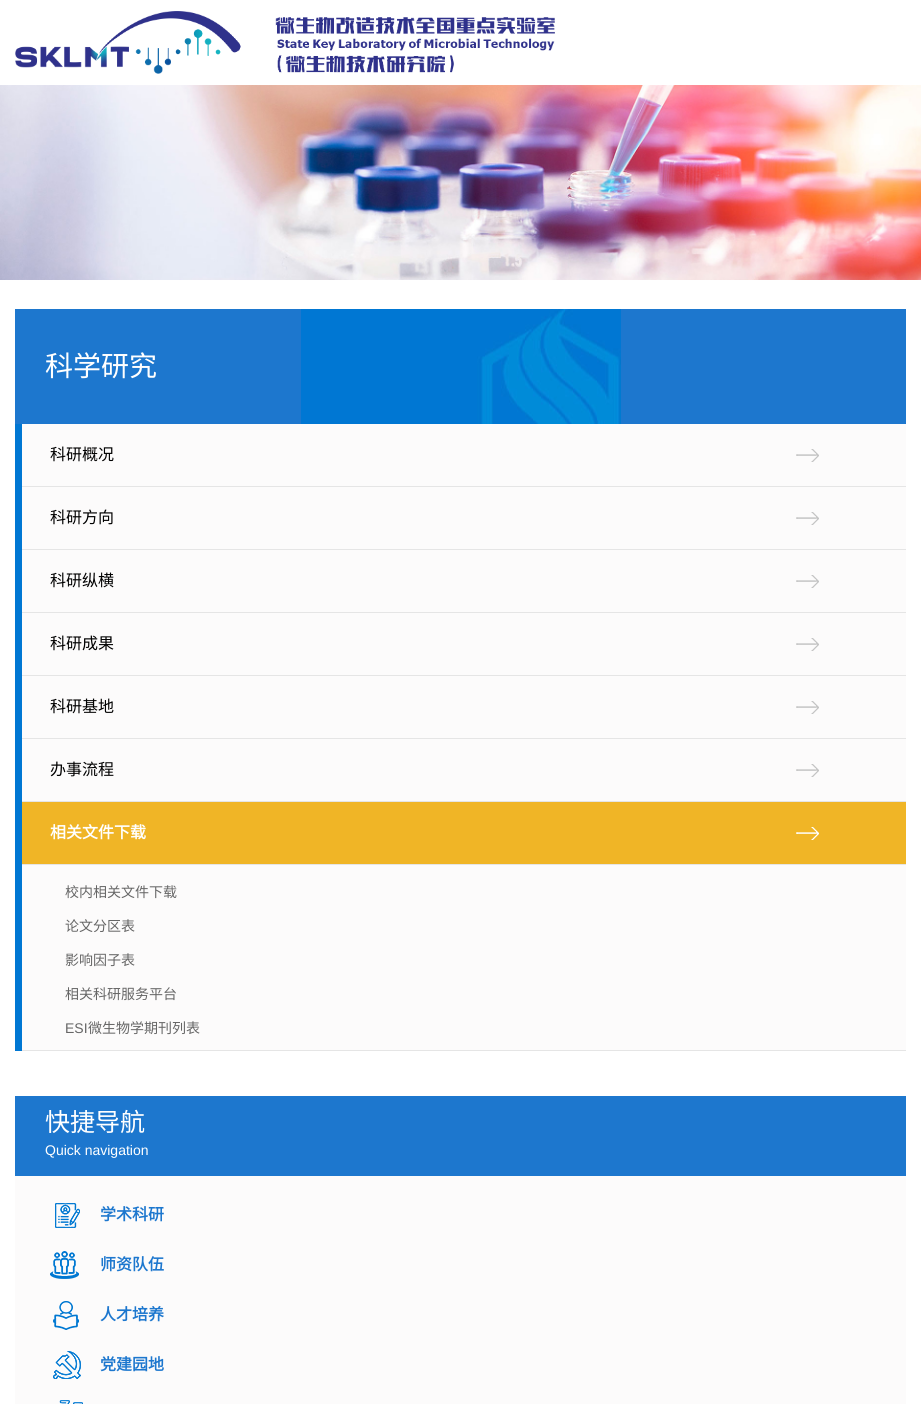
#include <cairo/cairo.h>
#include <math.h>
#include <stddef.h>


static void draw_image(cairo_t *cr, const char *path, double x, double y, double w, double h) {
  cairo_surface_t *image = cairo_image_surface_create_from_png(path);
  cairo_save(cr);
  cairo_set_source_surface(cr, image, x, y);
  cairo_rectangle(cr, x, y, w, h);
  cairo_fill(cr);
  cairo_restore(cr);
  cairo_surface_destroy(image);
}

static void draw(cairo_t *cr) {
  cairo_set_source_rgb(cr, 1, 1, 1);
  cairo_paint(cr);
  draw_image(cr, "images/1.png", 15, 11, 540, 63);
  draw_image(cr, "images/2.png", 0, 85, 921, 195);
  cairo_set_source_rgb(cr, 29 / 255.0, 119 / 255.0, 206 / 255.0);
  cairo_rectangle(cr, 15, 309, 891, 115);
  cairo_fill(cr);
  draw_image(cr, "images/3.png", 301, 309, 320, 115);
  cairo_set_source_rgb(cr, 252 / 255.0, 251 / 255.0, 251 / 255.0);
  cairo_rectangle(cr, 22, 424, 884, 626);
  cairo_fill(cr);
  cairo_set_source_rgb(cr, 229 / 255.0, 229 / 255.0, 229 / 255.0);
  cairo_rectangle(cr, 15, 486, 891, 1);
  cairo_fill(cr);
  cairo_rectangle(cr, 15, 549, 891, 1);
  cairo_fill(cr);
  cairo_rectangle(cr, 15, 612, 891, 1);
  cairo_fill(cr);
  cairo_rectangle(cr, 15, 675, 891, 1);
  cairo_fill(cr);
  cairo_rectangle(cr, 15, 738, 891, 1);
  cairo_fill(cr);
  cairo_rectangle(cr, 15, 801, 891, 1);
  cairo_fill(cr);
  cairo_rectangle(cr, 15, 864, 891, 1);
  cairo_fill(cr);
  cairo_rectangle(cr, 15, 1050, 891, 1);
  cairo_fill(cr);
  cairo_set_source_rgb(cr, 0, 119 / 255.0, 211 / 255.0);
  cairo_rectangle(cr, 15, 424, 7, 627);
  cairo_fill(cr);
  draw_image(cr, "images/4.png", 796, 449, 23, 13);
  draw_image(cr, "images/4.png", 796, 512, 23, 13);
  draw_image(cr, "images/4.png", 796, 575, 23, 13);
  draw_image(cr, "images/4.png", 796, 638, 23, 13);
  draw_image(cr, "images/4.png", 796, 701, 23, 13);
  draw_image(cr, "images/4.png", 796, 764, 23, 13);
  cairo_set_source_rgb(cr, 240 / 255.0, 181 / 255.0, 38 / 255.0);
  cairo_rectangle(cr, 22, 802, 884, 62);
  cairo_fill(cr);
  draw_image(cr, "images/5.png", 796, 827, 23, 13);
  cairo_set_source_rgb(cr, 252 / 255.0, 251 / 255.0, 251 / 255.0);
  cairo_rectangle(cr, 15, 1176, 891, 228);
  cairo_fill(cr);
  cairo_set_source_rgb(cr, 29 / 255.0, 119 / 255.0, 206 / 255.0);
  cairo_rectangle(cr, 15, 1096, 891, 80);
  cairo_fill(cr);
  draw_image(cr, "images/6.png", 55, 1203, 25, 25);
  draw_image(cr, "images/7.png", 50, 1251, 29, 28);
  draw_image(cr, "images/8.png", 53, 1301, 26, 29);
  draw_image(cr, "images/9.png", 53, 1351, 28, 28);
  draw_image(cr, "images/10.png", 59, 1400, 24, 4);
  cairo_select_font_face(cr, "Noto Sans CJK SC", CAIRO_FONT_SLANT_NORMAL, CAIRO_FONT_WEIGHT_NORMAL);
  cairo_set_font_size(cr, 28);
  cairo_set_source_rgb(cr, 1, 1, 1);
  cairo_move_to(cr, 45, 376);
  cairo_show_text(cr, "科学研究");
  cairo_set_font_size(cr, 16);
  cairo_set_source_rgb(cr, 0, 0, 0);
  cairo_move_to(cr, 50, 460);
  cairo_show_text(cr, "科研概况");
  cairo_move_to(cr, 50, 523);
  cairo_show_text(cr, "科研方向");
  cairo_move_to(cr, 50, 586);
  cairo_show_text(cr, "科研纵横");
  cairo_move_to(cr, 50, 649);
  cairo_show_text(cr, "科研成果");
  cairo_move_to(cr, 50, 712);
  cairo_show_text(cr, "科研基地");
  cairo_move_to(cr, 50, 775);
  cairo_show_text(cr, "办事流程");
  cairo_select_font_face(cr, "Noto Sans CJK SC", CAIRO_FONT_SLANT_NORMAL, CAIRO_FONT_WEIGHT_BOLD);
  cairo_set_source_rgb(cr, 1, 1, 1);
  cairo_move_to(cr, 50, 838);
  cairo_show_text(cr, "相关文件下载");
  cairo_select_font_face(cr, "Noto Sans CJK SC", CAIRO_FONT_SLANT_NORMAL, CAIRO_FONT_WEIGHT_NORMAL);
  cairo_set_font_size(cr, 14);
  cairo_set_source_rgb(cr, 102 / 255.0, 102 / 255.0, 102 / 255.0);
  cairo_move_to(cr, 65, 897);
  cairo_show_text(cr, "校内相关文件下载");
  cairo_move_to(cr, 65, 931);
  cairo_show_text(cr, "论文分区表");
  cairo_move_to(cr, 65, 965);
  cairo_show_text(cr, "影响因子表");
  cairo_move_to(cr, 65, 999);
  cairo_show_text(cr, "相关科研服务平台");
  cairo_select_font_face(cr, "Liberation Sans", CAIRO_FONT_SLANT_NORMAL, CAIRO_FONT_WEIGHT_NORMAL);
  cairo_move_to(cr, 65, 1033);
  cairo_show_text(cr, "ESI");
  cairo_select_font_face(cr, "Noto Sans CJK SC", CAIRO_FONT_SLANT_NORMAL, CAIRO_FONT_WEIGHT_NORMAL);
  cairo_move_to(cr, 88, 1033);
  cairo_show_text(cr, "微生物学期刊列表");
  cairo_set_font_size(cr, 25);
  cairo_set_source_rgb(cr, 1, 1, 1);
  cairo_move_to(cr, 45, 1131);
  cairo_show_text(cr, "快捷导航");
  cairo_select_font_face(cr, "Liberation Sans", CAIRO_FONT_SLANT_NORMAL, CAIRO_FONT_WEIGHT_NORMAL);
  cairo_set_font_size(cr, 14);
  cairo_move_to(cr, 45, 1155);
  cairo_show_text(cr, "Quick navigation");
  cairo_select_font_face(cr, "Noto Sans CJK SC", CAIRO_FONT_SLANT_NORMAL, CAIRO_FONT_WEIGHT_BOLD);
  cairo_set_font_size(cr, 16);
  cairo_set_source_rgb(cr, 29 / 255.0, 119 / 255.0, 206 / 255.0);
  cairo_move_to(cr, 100, 1220);
  cairo_show_text(cr, "学术科研");
  cairo_move_to(cr, 100, 1270);
  cairo_show_text(cr, "师资队伍");
  cairo_move_to(cr, 100, 1320);
  cairo_show_text(cr, "人才培养");
  cairo_move_to(cr, 100, 1370);
  cairo_show_text(cr, "党建园地");
}

int main(void) {
  cairo_surface_t *surface = cairo_image_surface_create(CAIRO_FORMAT_RGB24, 921, 1404);
  cairo_t *cr = cairo_create(surface);
  cairo_font_options_t *options = cairo_font_options_create();
  cairo_font_options_set_hint_metrics(options, CAIRO_HINT_METRICS_OFF);
  cairo_font_options_set_hint_style(options, CAIRO_HINT_STYLE_NONE);
  cairo_set_font_options(cr, options);
  cairo_set_miter_limit(cr, 4);
  draw(cr);
  cairo_surface_write_to_png(surface, "out.png");
  cairo_font_options_destroy(options);
  cairo_destroy(cr);
  cairo_surface_destroy(surface);
  return 0;
}
